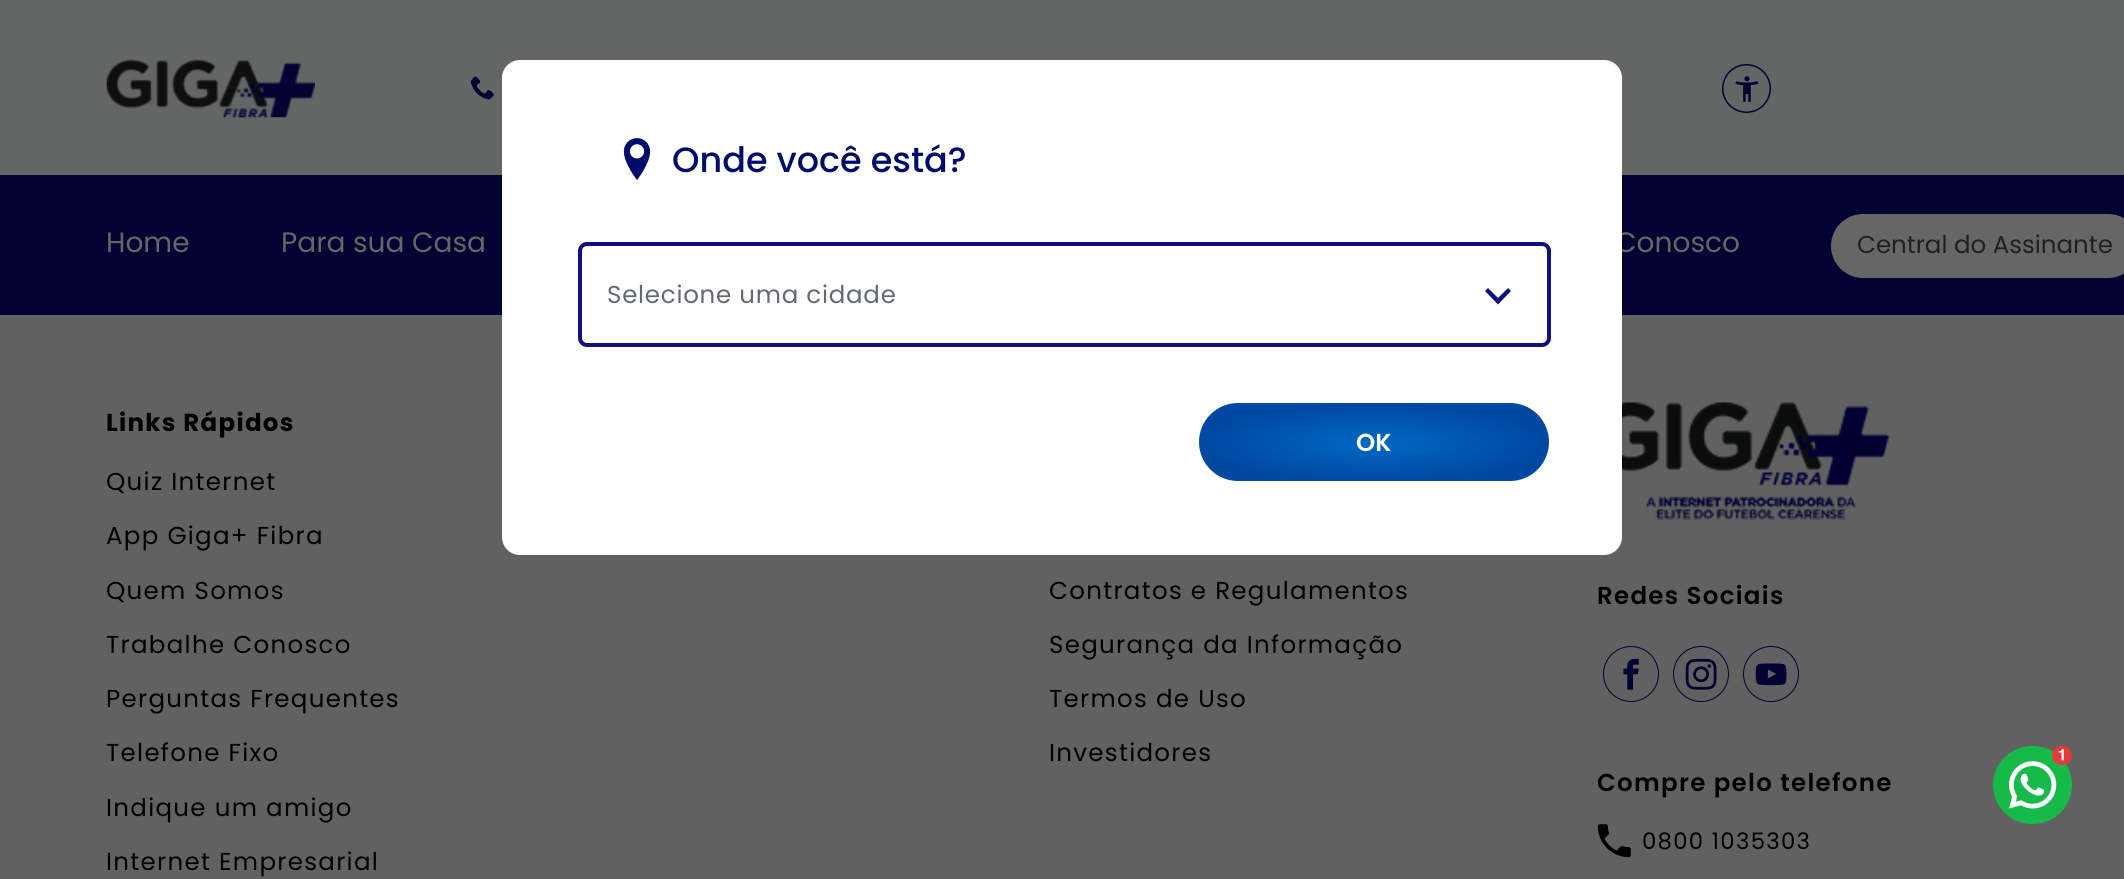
#include <cairo/cairo.h>
#include <math.h>
#include <stddef.h>


static void draw_spaced(cairo_t *cr, double x, double y, const char *s, double letter, double word) {
  cairo_move_to(cr, x, y);
  while (*s) {
    char ch[5] = {0};
    int n = 0;
    do ch[n++] = *s++; while ((*s & 0xC0) == 0x80);
    cairo_show_text(cr, ch);
    cairo_rel_move_to(cr, letter + word * (*ch == ' '), 0);
  }
}

static void rounded_rect(cairo_t *cr, double x, double y, double w, double h, double r) {
  cairo_new_sub_path(cr);
  cairo_arc(cr, x + w - r, y + h - r, r, 0, M_PI / 2);
  cairo_arc(cr, x + r, y + h - r, r, M_PI / 2, M_PI);
  cairo_arc(cr, x + r, y + r, r, M_PI, 1.5 * M_PI);
  cairo_arc(cr, x + w - r, y + r, r, 1.5 * M_PI, 2 * M_PI);
  cairo_close_path(cr);
}

static void draw_image(cairo_t *cr, const char *path, double x, double y, double w, double h) {
  cairo_surface_t *image = cairo_image_surface_create_from_png(path);
  cairo_save(cr);
  cairo_set_source_surface(cr, image, x, y);
  cairo_rectangle(cr, x, y, w, h);
  cairo_fill(cr);
  cairo_restore(cr);
  cairo_surface_destroy(image);
}

static void draw(cairo_t *cr) {
  cairo_pattern_t *gradient;
  cairo_set_source_rgb(cr, 100 / 255.0, 102 / 255.0, 101 / 255.0);
  cairo_paint(cr);
  draw_image(cr, "images/2.png", 106, 59, 209, 59);
  draw_image(cr, "images/3.png", 470, 76, 24, 24);
  draw_image(cr, "images/4.png", 1722, 64, 49, 49);
  cairo_set_source_rgb(cr, 2 / 255.0, 3 / 255.0, 50 / 255.0);
  cairo_rectangle(cr, 0, 175, 2124, 140);
  cairo_fill(cr);
  cairo_set_source_rgb(cr, 102 / 255.0, 102 / 255.0, 102 / 255.0);
  rounded_rect(cr, 1831, 214, 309, 64, 32);
  cairo_fill(cr);
  cairo_set_source_rgb(cr, 97 / 255.0, 97 / 255.0, 97 / 255.0);
  cairo_rectangle(cr, 0, 315, 2124, 564);
  cairo_fill(cr);
  draw_image(cr, "images/5.png", 1622, 402, 268, 118);
  cairo_arc(cr, 1631, 674, 27.5, 0, 2 * M_PI);
  cairo_set_source_rgb(cr, 2 / 255.0, 3 / 255.0, 50 / 255.0);
  cairo_set_line_width(cr, 1);
  cairo_stroke(cr);
  draw_image(cr, "images/6.png", 1623, 658, 16, 32);
  cairo_arc(cr, 1701, 674, 27.5, 0, 2 * M_PI);
  cairo_stroke(cr);
  draw_image(cr, "images/7.png", 1685, 658, 32, 32);
  cairo_arc(cr, 1771, 674, 27.5, 0, 2 * M_PI);
  cairo_stroke(cr);
  draw_image(cr, "images/8.png", 1755, 663, 32, 23);
  draw_image(cr, "images/9.png", 1597, 824, 34, 34);
  draw_image(cr, "images/10.png", 1993, 746, 79, 78);
  cairo_select_font_face(cr, "Poppins", CAIRO_FONT_SLANT_NORMAL, CAIRO_FONT_WEIGHT_NORMAL);
  cairo_set_font_size(cr, 28);
  cairo_set_source_rgb(cr, 102 / 255.0, 102 / 255.0, 102 / 255.0);
  cairo_move_to(cr, 106, 252);
  cairo_show_text(cr, "Home");
  cairo_move_to(cr, 281, 252);
  cairo_show_text(cr, "Para sua Casa");
  cairo_move_to(cr, 1615, 252);
  cairo_show_text(cr, "Conosco");
  cairo_set_source_rgb(cr, 1, 1, 1);
  rounded_rect(cr, 502, 60, 1120, 495, 18);
  cairo_fill(cr);
  rounded_rect(cr, 580, 244, 969, 101, 7);
  cairo_set_source_rgb(cr, 16 / 255.0, 16 / 255.0, 128 / 255.0);
  cairo_set_line_width(cr, 4);
  cairo_stroke(cr);
  cairo_new_path(cr);
  cairo_move_to(cr, 1488, 288);
  cairo_line_to(cr, 1498, 298);
  cairo_line_to(cr, 1508, 288);
  cairo_line_to(cr, 1511, 291);
  cairo_line_to(cr, 1498, 304.5);
  cairo_line_to(cr, 1485, 291);
  cairo_close_path(cr);
  cairo_fill(cr);
  cairo_set_font_size(cr, 24.5);
  cairo_set_source_rgb(cr, 100 / 255.0, 105 / 255.0, 112 / 255.0);
  draw_spaced(cr, 607, 303, "Selecione uma cidade", 0.75, 0);
  gradient = cairo_pattern_create_radial(0, 0, 0, 0, 0, 1);
  cairo_pattern_set_matrix(gradient, &(cairo_matrix_t){1.0 / 175, 0, 0, 1.0 / 39, -1.0 * 1374 / 175, -1.0 * 443 / 39});
  cairo_pattern_add_color_stop_rgba(gradient, 0, 0, 105 / 255.0, 195 / 255.0, 1);
  cairo_pattern_add_color_stop_rgba(gradient, 1, 0, 72 / 255.0, 162 / 255.0, 1);
  cairo_set_source(cr, gradient);
  cairo_pattern_destroy(gradient);
  rounded_rect(cr, 1199, 403, 350, 78, 39);
  cairo_fill(cr);
  cairo_select_font_face(cr, "Poppins SemiBold", CAIRO_FONT_SLANT_NORMAL, CAIRO_FONT_WEIGHT_NORMAL);
  cairo_set_source_rgb(cr, 1, 1, 1);
  cairo_move_to(cr, 1356, 451);
  cairo_show_text(cr, "OK");
  cairo_select_font_face(cr, "Poppins Medium", CAIRO_FONT_SLANT_NORMAL, CAIRO_FONT_WEIGHT_NORMAL);
  cairo_set_font_size(cr, 35);
  cairo_set_source_rgb(cr, 0, 11 / 255.0, 107 / 255.0);
  cairo_move_to(cr, 672, 172);
  cairo_show_text(cr, "Onde você está?");
  draw_image(cr, "images/1.png", 623, 138, 28, 42);
  cairo_select_font_face(cr, "Poppins", CAIRO_FONT_SLANT_NORMAL, CAIRO_FONT_WEIGHT_NORMAL);
  cairo_set_font_size(cr, 24.5);
  cairo_set_source_rgb(cr, 32 / 255.0, 32 / 255.0, 33 / 255.0);
  cairo_move_to(cr, 1857, 253);
  cairo_show_text(cr, "Central do Assinante");
  cairo_select_font_face(cr, "Poppins", CAIRO_FONT_SLANT_NORMAL, CAIRO_FONT_WEIGHT_BOLD);
  cairo_set_source_rgb(cr, 0, 0, 0);
  draw_spaced(cr, 106, 431, "Links Rápidos", 1.3, 0);
  cairo_select_font_face(cr, "Poppins", CAIRO_FONT_SLANT_NORMAL, CAIRO_FONT_WEIGHT_NORMAL);
  draw_spaced(cr, 106, 490, "Quiz Internet", 1.3, 0);
  draw_spaced(cr, 106, 544, "App Giga+ Fibra", 1.3, 0);
  draw_spaced(cr, 106, 599, "Quem Somos", 1.3, 0);
  draw_spaced(cr, 106, 653, "Trabalhe Conosco", 1.3, 0);
  draw_spaced(cr, 106, 707, "Perguntas Frequentes", 1.3, 0);
  draw_spaced(cr, 106, 761, "Telefone Fixo", 1.3, 0);
  draw_spaced(cr, 106, 816, "Indique um amigo", 1.3, 0);
  draw_spaced(cr, 106, 870, "Internet Empresarial", 1.3, 0);
  draw_spaced(cr, 1049, 599, "Contratos e Regulamentos", 1.3, 0);
  draw_spaced(cr, 1049, 653, "Segurança da Informação", 1.3, 0);
  draw_spaced(cr, 1049, 707, "Termos de Uso", 1.3, 0);
  draw_spaced(cr, 1049, 761, "Investidores", 1.3, 0);
  cairo_select_font_face(cr, "Poppins SemiBold", CAIRO_FONT_SLANT_NORMAL, CAIRO_FONT_WEIGHT_NORMAL);
  draw_spaced(cr, 1597, 604, "Redes Sociais", 1.3, 0);
  draw_spaced(cr, 1597, 791, "Compre pelo telefone", 1.3, 0);
  cairo_select_font_face(cr, "Poppins", CAIRO_FONT_SLANT_NORMAL, CAIRO_FONT_WEIGHT_NORMAL);
  cairo_set_font_size(cr, 22.75);
  draw_spaced(cr, 1642, 849, "0800 1035303", 1.3, 0);
}

int main(void) {
  cairo_surface_t *surface = cairo_image_surface_create(CAIRO_FORMAT_RGB24, 2124, 879);
  cairo_t *cr = cairo_create(surface);
  cairo_font_options_t *options = cairo_font_options_create();
  cairo_font_options_set_hint_metrics(options, CAIRO_HINT_METRICS_OFF);
  cairo_font_options_set_hint_style(options, CAIRO_HINT_STYLE_NONE);
  cairo_set_font_options(cr, options);
  cairo_set_miter_limit(cr, 4);
  draw(cr);
  cairo_surface_write_to_png(surface, "out.png");
  cairo_font_options_destroy(options);
  cairo_destroy(cr);
  cairo_surface_destroy(surface);
  return 0;
}
